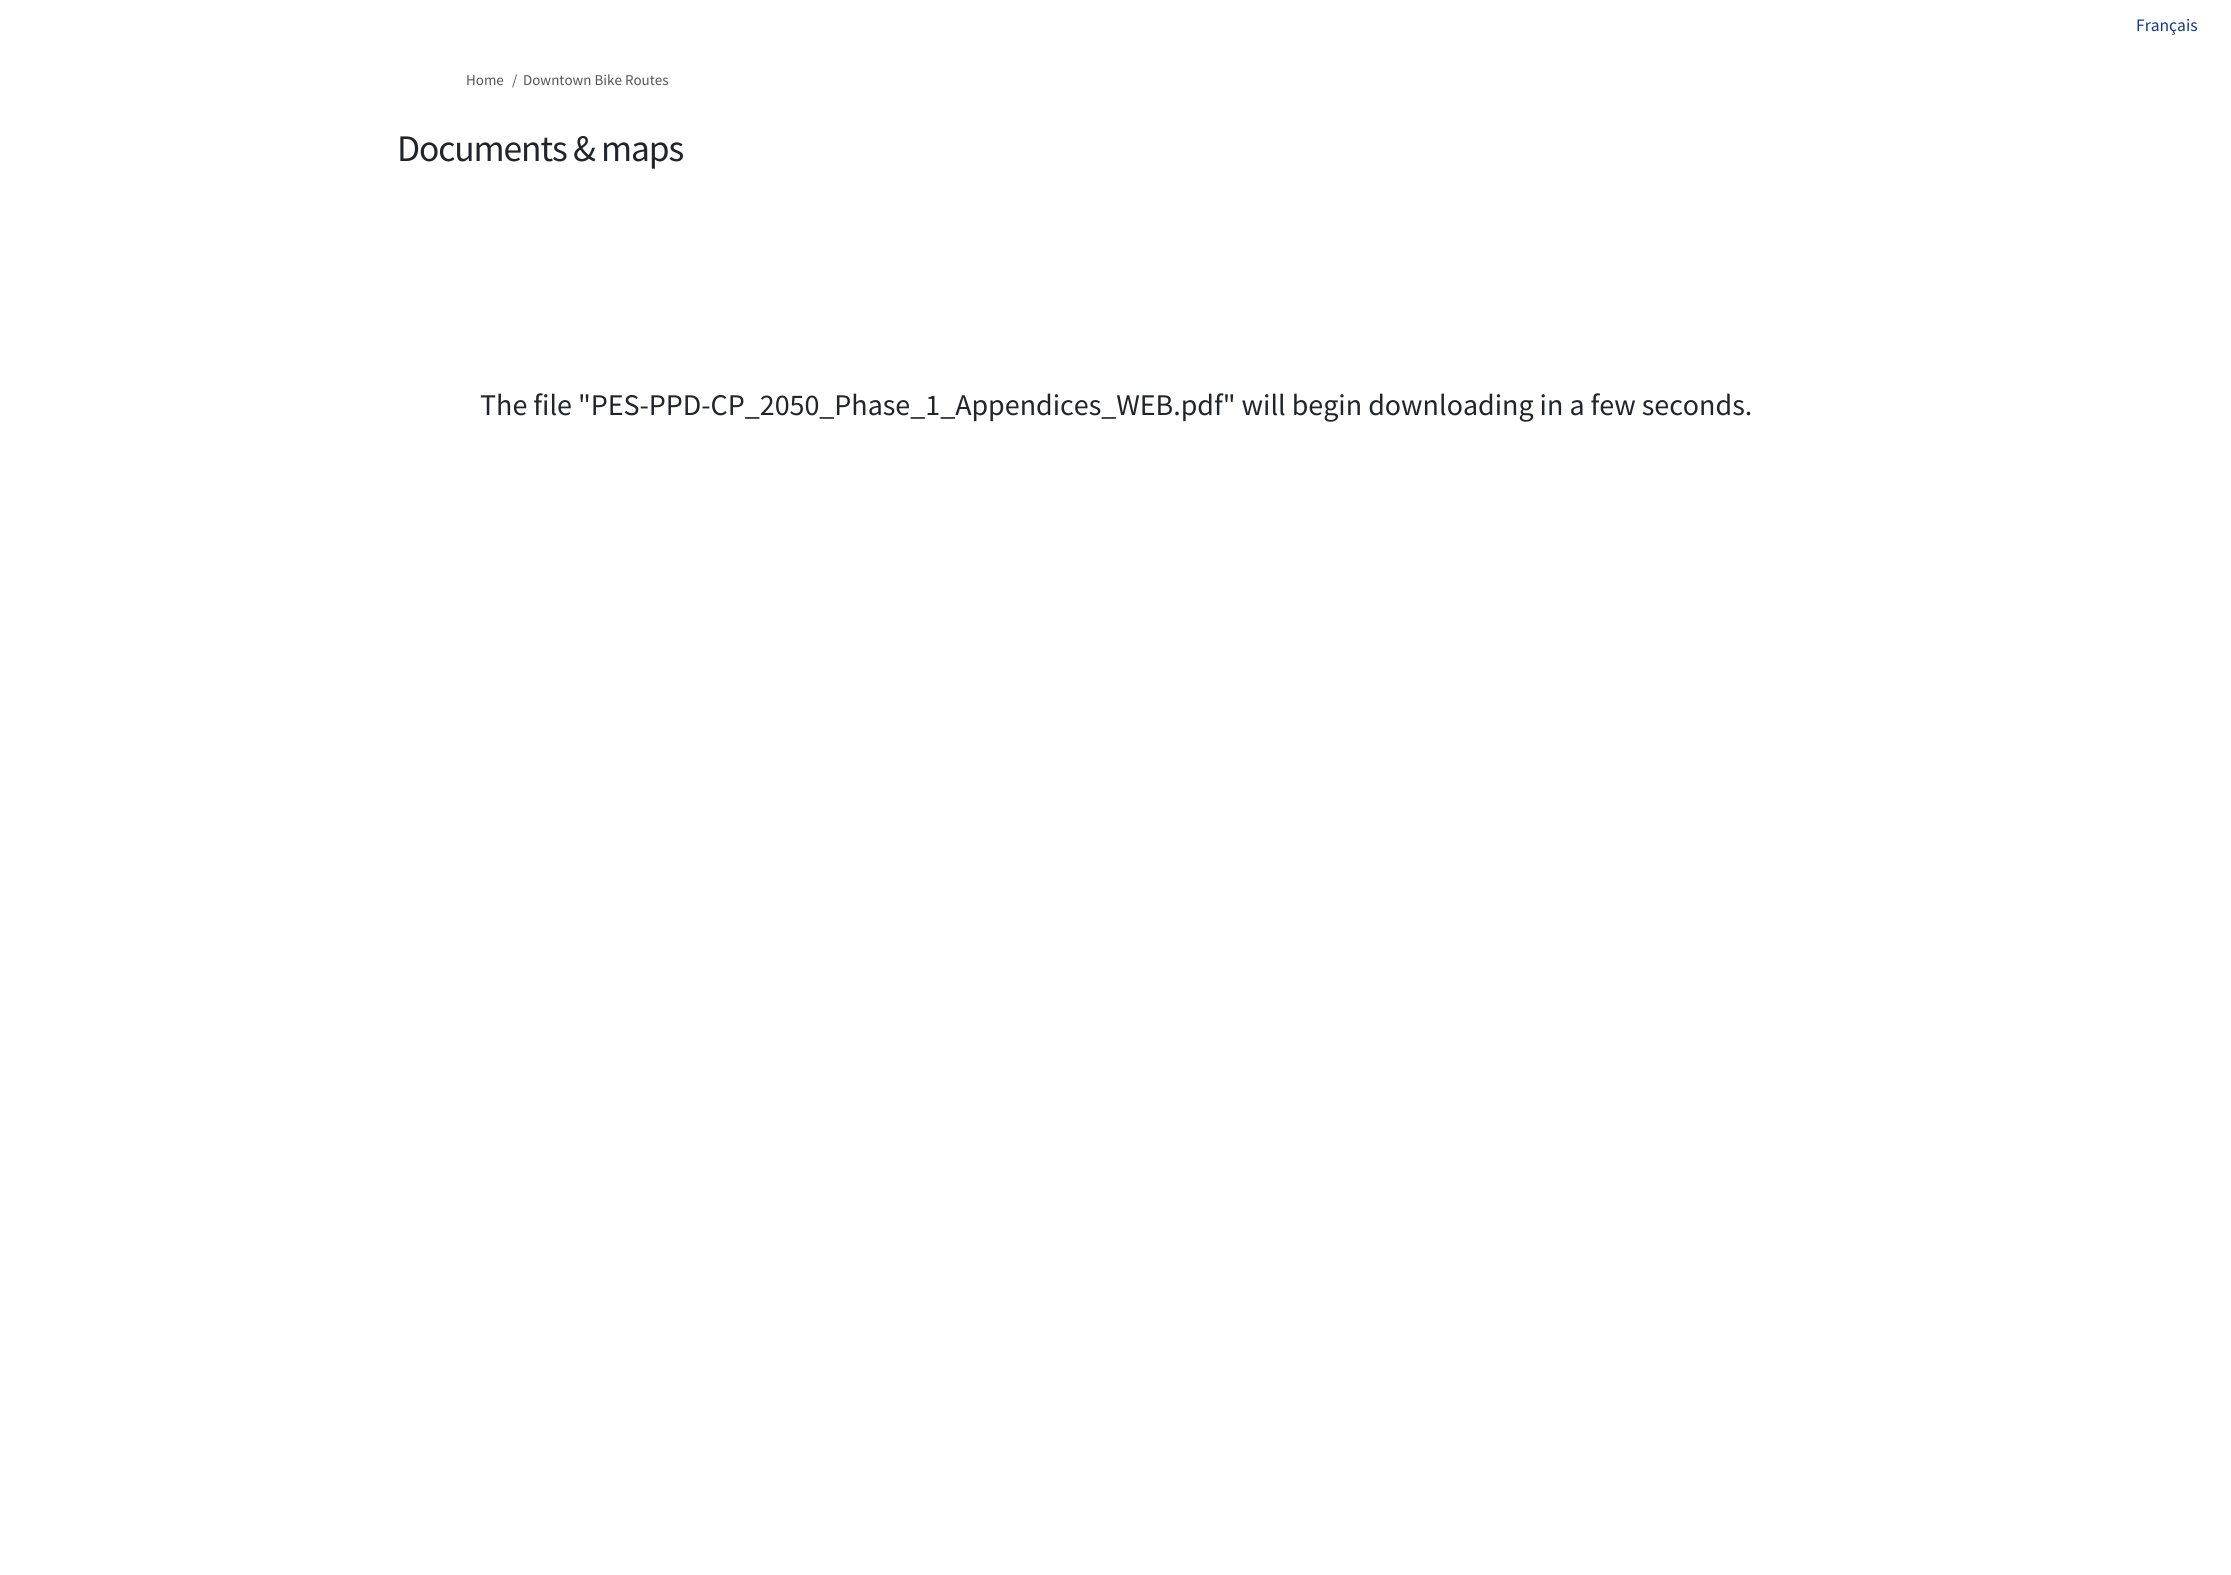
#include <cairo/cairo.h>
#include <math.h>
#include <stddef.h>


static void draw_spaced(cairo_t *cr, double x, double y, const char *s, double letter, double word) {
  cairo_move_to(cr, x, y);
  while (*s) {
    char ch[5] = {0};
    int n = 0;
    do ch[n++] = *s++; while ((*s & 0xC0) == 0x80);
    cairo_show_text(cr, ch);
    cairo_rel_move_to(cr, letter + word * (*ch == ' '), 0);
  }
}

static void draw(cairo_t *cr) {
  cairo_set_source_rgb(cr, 1, 1, 1);
  cairo_paint(cr);
  cairo_select_font_face(cr, "Source Sans Pro", CAIRO_FONT_SLANT_NORMAL, CAIRO_FONT_WEIGHT_NORMAL);
  cairo_set_font_size(cr, 17.5);
  cairo_set_source_rgb(cr, 18 / 255.0, 57 / 255.0, 133 / 255.0);
  cairo_move_to(cr, 2136, 31);
  cairo_show_text(cr, "Français");
  cairo_set_font_size(cr, 15);
  cairo_set_source_rgb(cr, 85 / 255.0, 85 / 255.0, 85 / 255.0);
  cairo_move_to(cr, 466, 85);
  cairo_show_text(cr, "Home");
  cairo_move_to(cr, 512, 85);
  cairo_show_text(cr, "/");
  cairo_move_to(cr, 523, 85);
  cairo_show_text(cr, "Downtown Bike Routes");
  cairo_set_font_size(cr, 37.5);
  cairo_set_source_rgb(cr, 33 / 255.0, 37 / 255.0, 41 / 255.0);
  draw_spaced(cr, 397, 161, "Documents & maps", -1.1, 0);
  cairo_set_font_size(cr, 30);
  cairo_move_to(cr, 480, 415);
  cairo_show_text(cr, "The file \"PES-PPD-CP_2050_Phase_1_Appendices_WEB.pdf\" will begin downloading in a few seconds.");
}

int main(void) {
  cairo_surface_t *surface = cairo_image_surface_create(CAIRO_FORMAT_RGB24, 2231, 1575);
  cairo_t *cr = cairo_create(surface);
  cairo_font_options_t *options = cairo_font_options_create();
  cairo_font_options_set_hint_metrics(options, CAIRO_HINT_METRICS_OFF);
  cairo_font_options_set_hint_style(options, CAIRO_HINT_STYLE_NONE);
  cairo_set_font_options(cr, options);
  cairo_set_miter_limit(cr, 4);
  draw(cr);
  cairo_surface_write_to_png(surface, "out.png");
  cairo_font_options_destroy(options);
  cairo_destroy(cr);
  cairo_surface_destroy(surface);
  return 0;
}
